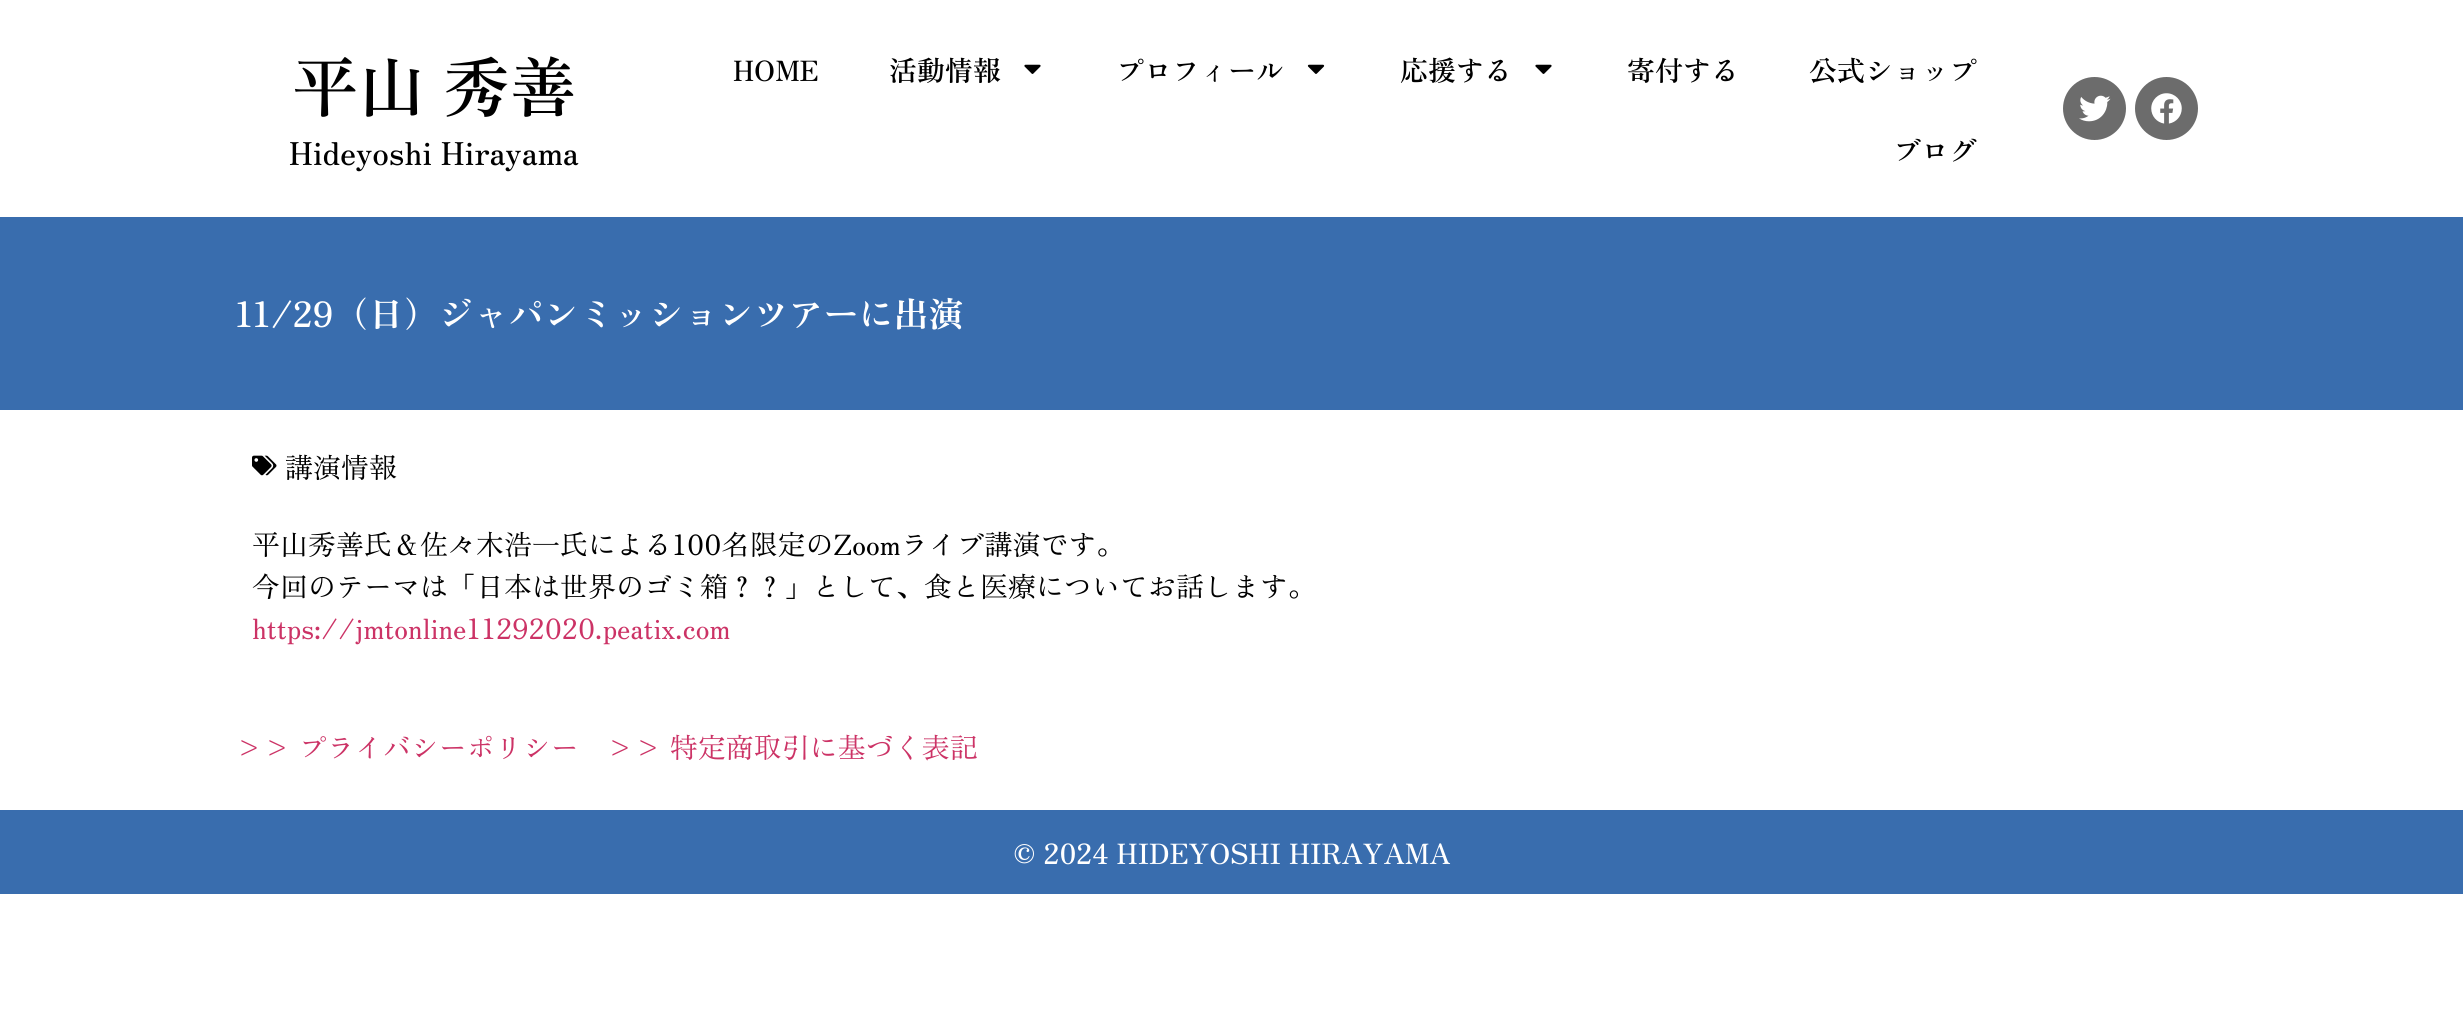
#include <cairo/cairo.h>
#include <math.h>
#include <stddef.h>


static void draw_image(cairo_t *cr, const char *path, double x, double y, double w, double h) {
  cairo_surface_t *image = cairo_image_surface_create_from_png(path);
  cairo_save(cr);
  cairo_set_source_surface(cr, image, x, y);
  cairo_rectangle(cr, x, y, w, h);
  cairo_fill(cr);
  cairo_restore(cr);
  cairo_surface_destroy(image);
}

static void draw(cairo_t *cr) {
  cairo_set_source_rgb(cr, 1, 1, 1);
  cairo_paint(cr);
  draw_image(cr, "images/1.png", 1024, 64, 17, 10);
  draw_image(cr, "images/2.png", 1307, 64, 18, 10);
  draw_image(cr, "images/1.png", 1535, 64, 17, 10);
  cairo_set_source_rgb(cr, 108 / 255.0, 108 / 255.0, 108 / 255.0);
  cairo_arc(cr, 2094.5, 108.5, 31.5, 0, 2 * M_PI);
  cairo_fill(cr);
  draw_image(cr, "images/3.png", 2079, 95, 32, 27);
  cairo_arc(cr, 2166.5, 108.5, 31.5, 0, 2 * M_PI);
  cairo_fill(cr);
  draw_image(cr, "images/4.png", 2151, 93, 31, 31);
  cairo_set_source_rgb(cr, 57 / 255.0, 109 / 255.0, 174 / 255.0);
  cairo_rectangle(cr, 0, 217, 2463, 193);
  cairo_fill(cr);
  draw_image(cr, "images/5.png", 252, 455, 25, 21);
  cairo_rectangle(cr, 0, 810, 2463, 84);
  cairo_fill(cr);
  cairo_select_font_face(cr, "Zen Old Mincho SemiBold", CAIRO_FONT_SLANT_NORMAL, CAIRO_FONT_WEIGHT_NORMAL);
  cairo_set_font_size(cr, 66.5);
  cairo_set_source_rgb(cr, 0, 0, 0);
  cairo_move_to(cr, 292, 112);
  cairo_show_text(cr, "平山 秀善");
  cairo_set_font_size(cr, 31.5);
  cairo_move_to(cr, 289, 165);
  cairo_show_text(cr, "Hideyoshi Hirayama");
  cairo_set_font_size(cr, 28);
  cairo_move_to(cr, 733, 81);
  cairo_show_text(cr, "HOME");
  cairo_move_to(cr, 889, 81);
  cairo_show_text(cr, "活動情報");
  cairo_move_to(cr, 1116, 81);
  cairo_show_text(cr, "プロフィール");
  cairo_move_to(cr, 1400, 81);
  cairo_show_text(cr, "応援する");
  cairo_move_to(cr, 1627, 81);
  cairo_show_text(cr, "寄付する");
  cairo_move_to(cr, 1809, 81);
  cairo_show_text(cr, "公式ショップ");
  cairo_move_to(cr, 1893, 161);
  cairo_show_text(cr, "ブログ");
  cairo_select_font_face(cr, "Zen Old Mincho", CAIRO_FONT_SLANT_NORMAL, CAIRO_FONT_WEIGHT_BOLD);
  cairo_set_font_size(cr, 35);
  cairo_set_source_rgb(cr, 1, 1, 1);
  cairo_move_to(cr, 235, 327);
  cairo_show_text(cr, "11/29（日）ジャパンミッションツアーに出演");
  cairo_select_font_face(cr, "Zen Old Mincho", CAIRO_FONT_SLANT_NORMAL, CAIRO_FONT_WEIGHT_NORMAL);
  cairo_set_font_size(cr, 28);
  cairo_set_source_rgb(cr, 0, 0, 0);
  cairo_move_to(cr, 285, 478);
  cairo_show_text(cr, "講演情報");
  cairo_move_to(cr, 252, 555);
  cairo_show_text(cr, "平山秀善氏＆佐々木浩一氏による100名限定のZoomライブ講演です。");
  cairo_move_to(cr, 252, 597);
  cairo_show_text(cr, "今回のテーマは「日本は世界のゴミ箱？？」として、食と医療についてお話します。");
  cairo_set_source_rgb(cr, 204 / 255.0, 51 / 255.0, 102 / 255.0);
  cairo_move_to(cr, 252, 639);
  cairo_show_text(cr, "https://jmtonline11292020.peatix.com");
  cairo_move_to(cr, 235, 758);
  cairo_show_text(cr, ">> プライバシーポリシー");
  cairo_move_to(cr, 606, 758);
  cairo_show_text(cr, ">> 特定商取引に基づく表記");
  cairo_select_font_face(cr, "Zen Old Mincho SemiBold", CAIRO_FONT_SLANT_NORMAL, CAIRO_FONT_WEIGHT_NORMAL);
  cairo_set_source_rgb(cr, 1, 1, 1);
  cairo_move_to(cr, 1013, 864);
  cairo_show_text(cr, "© 2024 HIDEYOSHI HIRAYAMA");
}

int main(void) {
  cairo_surface_t *surface = cairo_image_surface_create(CAIRO_FORMAT_RGB24, 2463, 1022);
  cairo_t *cr = cairo_create(surface);
  cairo_font_options_t *options = cairo_font_options_create();
  cairo_font_options_set_hint_metrics(options, CAIRO_HINT_METRICS_OFF);
  cairo_font_options_set_hint_style(options, CAIRO_HINT_STYLE_NONE);
  cairo_set_font_options(cr, options);
  cairo_set_miter_limit(cr, 4);
  draw(cr);
  cairo_surface_write_to_png(surface, "out.png");
  cairo_font_options_destroy(options);
  cairo_destroy(cr);
  cairo_surface_destroy(surface);
  return 0;
}
